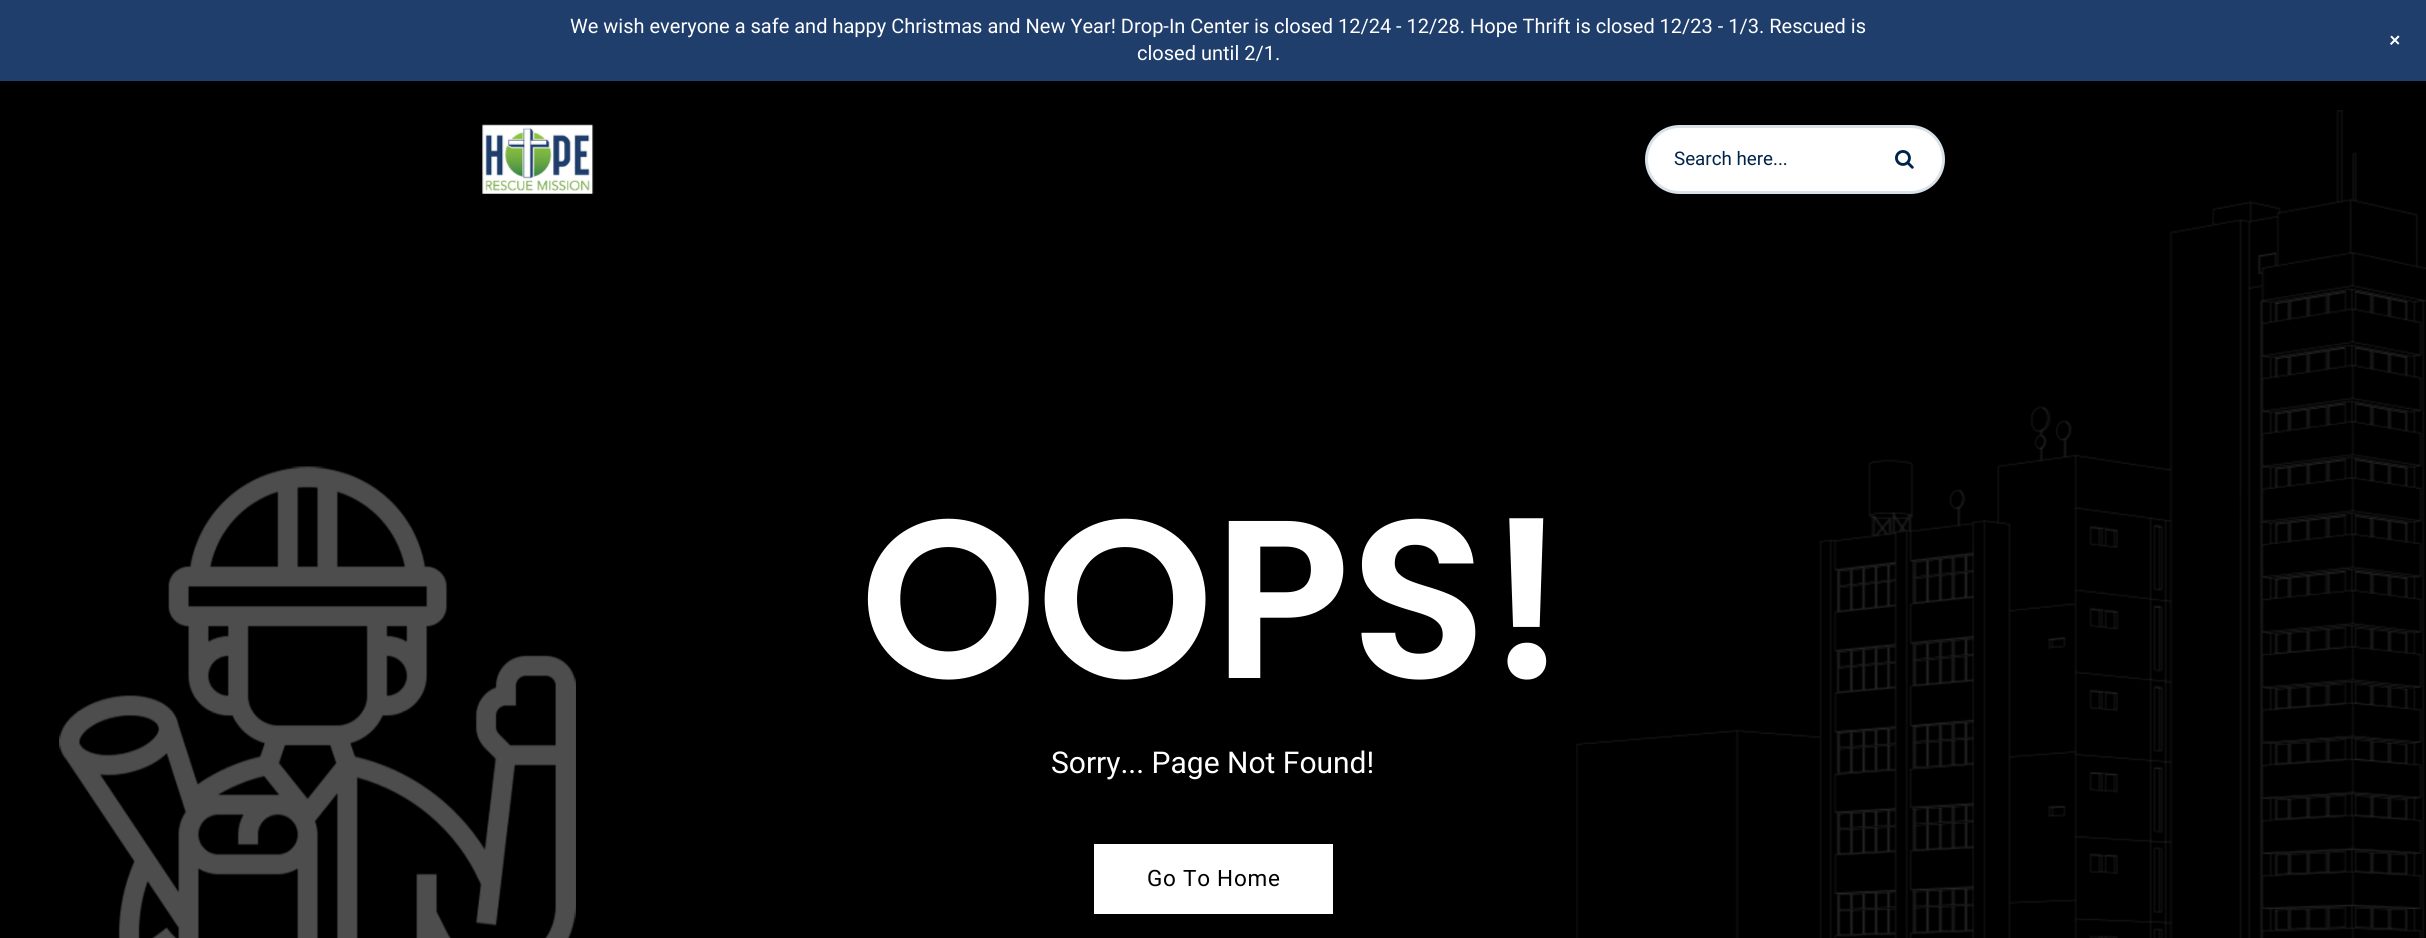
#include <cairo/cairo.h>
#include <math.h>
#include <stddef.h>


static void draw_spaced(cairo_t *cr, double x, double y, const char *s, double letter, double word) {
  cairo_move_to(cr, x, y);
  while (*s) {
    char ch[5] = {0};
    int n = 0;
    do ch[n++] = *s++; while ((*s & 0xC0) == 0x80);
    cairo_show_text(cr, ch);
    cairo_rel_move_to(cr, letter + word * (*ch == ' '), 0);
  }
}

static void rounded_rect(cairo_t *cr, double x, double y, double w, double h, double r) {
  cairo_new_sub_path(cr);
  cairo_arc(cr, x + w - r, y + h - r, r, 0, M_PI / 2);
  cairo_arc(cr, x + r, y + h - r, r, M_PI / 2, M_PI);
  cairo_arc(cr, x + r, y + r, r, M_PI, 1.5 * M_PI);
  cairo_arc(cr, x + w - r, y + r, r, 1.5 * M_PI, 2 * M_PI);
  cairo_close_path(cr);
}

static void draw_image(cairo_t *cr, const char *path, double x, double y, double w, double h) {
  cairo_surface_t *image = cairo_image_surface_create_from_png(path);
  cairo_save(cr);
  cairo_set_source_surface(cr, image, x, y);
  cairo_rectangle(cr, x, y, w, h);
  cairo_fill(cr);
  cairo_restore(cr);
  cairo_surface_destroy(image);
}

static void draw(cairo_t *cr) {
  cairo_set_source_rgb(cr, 0, 0, 0);
  cairo_paint(cr);
  cairo_set_source_rgb(cr, 31 / 255.0, 62 / 255.0, 108 / 255.0);
  cairo_rectangle(cr, 0, 0, 2426, 81);
  cairo_fill(cr);
  draw_image(cr, "images/1.png", 59, 466, 517, 472);
  draw_image(cr, "images/2.png", 482, 124, 112, 70);
  draw_image(cr, "images/4.png", 1576, 110, 850, 828);
  cairo_set_source_rgb(cr, 1, 1, 1);
  rounded_rect(cr, 1646.5, 126.5, 297, 66, 33);
  cairo_fill_preserve(cr);
  cairo_set_source_rgb(cr, 217 / 255.0, 225 / 255.0, 233 / 255.0);
  cairo_set_line_width(cr, 3);
  cairo_stroke(cr);
  draw_image(cr, "images/3.png", 1895, 150, 19, 19);
  cairo_set_source_rgb(cr, 1, 1, 1);
  cairo_rectangle(cr, 1094, 844, 239, 70);
  cairo_fill(cr);
  cairo_select_font_face(cr, "Roboto", CAIRO_FONT_SLANT_NORMAL, CAIRO_FONT_WEIGHT_NORMAL);
  cairo_set_font_size(cr, 20);
  cairo_move_to(cr, 570, 33);
  cairo_show_text(cr, "We wish everyone a safe and happy Christmas and New Year! Drop-In Center is closed 12/24 - 12/28. Hope Thrift is closed 12/23 - 1/3. Rescued is");
  cairo_move_to(cr, 1137, 60);
  cairo_show_text(cr, "closed until 2/1.");
  cairo_set_font_size(cr, 22.5);
  cairo_save(cr);
  cairo_translate(cr, 2385, 41);
  cairo_rotate(cr, 45 * M_PI / 180);
  cairo_move_to(cr, 0, 0);
  cairo_show_text(cr, "+");
  cairo_restore(cr);
  cairo_set_font_size(cr, 18.75);
  cairo_set_source_rgb(cr, 0, 35 / 255.0, 75 / 255.0);
  cairo_move_to(cr, 1674, 165);
  cairo_show_text(cr, "Search here...");
  cairo_select_font_face(cr, "Poppins SemiBold", CAIRO_FONT_SLANT_NORMAL, CAIRO_FONT_WEIGHT_NORMAL);
  cairo_set_font_size(cr, 225);
  cairo_set_source_rgb(cr, 1, 1, 1);
  cairo_move_to(cr, 860, 678);
  cairo_show_text(cr, "OOPS!");
  cairo_select_font_face(cr, "Roboto", CAIRO_FONT_SLANT_NORMAL, CAIRO_FONT_WEIGHT_NORMAL);
  cairo_set_font_size(cr, 30);
  cairo_move_to(cr, 1051, 773);
  cairo_show_text(cr, "Sorry... Page Not Found!");
  cairo_set_font_size(cr, 22.5);
  cairo_set_source_rgb(cr, 0, 0, 0);
  draw_spaced(cr, 1147, 886, "Go To Home", 0.75, 0);
}

int main(void) {
  cairo_surface_t *surface = cairo_image_surface_create(CAIRO_FORMAT_RGB24, 2426, 938);
  cairo_t *cr = cairo_create(surface);
  cairo_font_options_t *options = cairo_font_options_create();
  cairo_font_options_set_hint_metrics(options, CAIRO_HINT_METRICS_OFF);
  cairo_font_options_set_hint_style(options, CAIRO_HINT_STYLE_NONE);
  cairo_set_font_options(cr, options);
  cairo_set_miter_limit(cr, 4);
  draw(cr);
  cairo_surface_write_to_png(surface, "out.png");
  cairo_font_options_destroy(options);
  cairo_destroy(cr);
  cairo_surface_destroy(surface);
  return 0;
}
